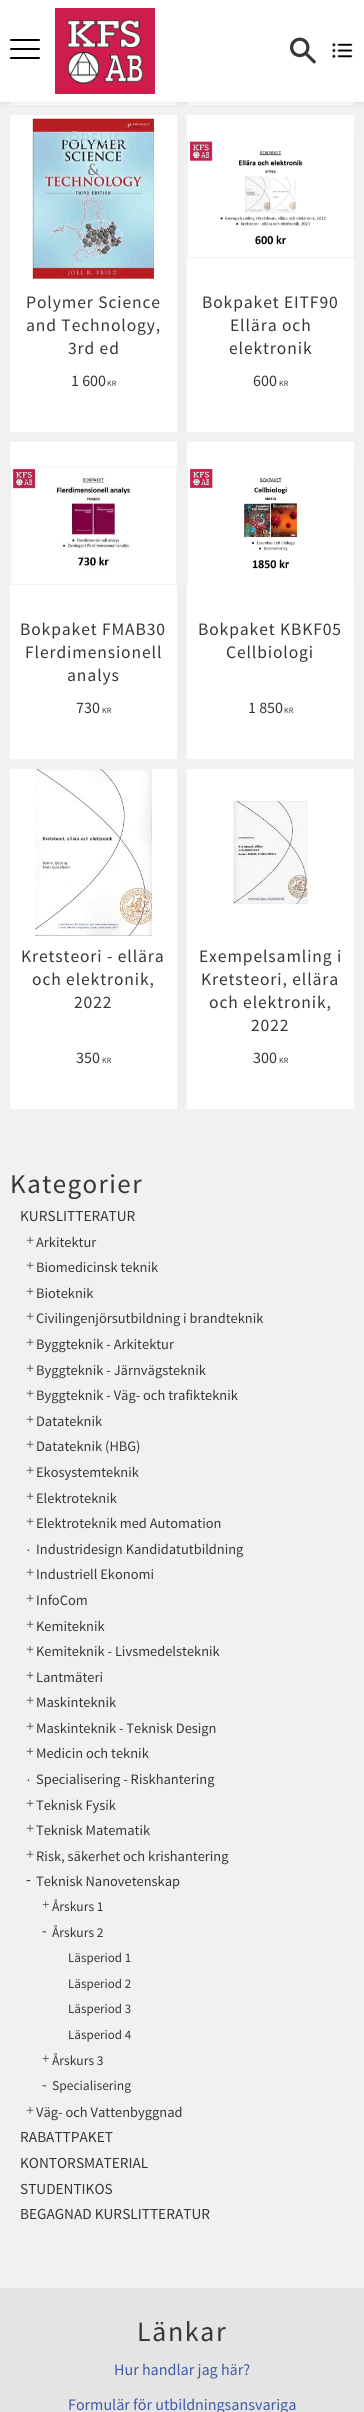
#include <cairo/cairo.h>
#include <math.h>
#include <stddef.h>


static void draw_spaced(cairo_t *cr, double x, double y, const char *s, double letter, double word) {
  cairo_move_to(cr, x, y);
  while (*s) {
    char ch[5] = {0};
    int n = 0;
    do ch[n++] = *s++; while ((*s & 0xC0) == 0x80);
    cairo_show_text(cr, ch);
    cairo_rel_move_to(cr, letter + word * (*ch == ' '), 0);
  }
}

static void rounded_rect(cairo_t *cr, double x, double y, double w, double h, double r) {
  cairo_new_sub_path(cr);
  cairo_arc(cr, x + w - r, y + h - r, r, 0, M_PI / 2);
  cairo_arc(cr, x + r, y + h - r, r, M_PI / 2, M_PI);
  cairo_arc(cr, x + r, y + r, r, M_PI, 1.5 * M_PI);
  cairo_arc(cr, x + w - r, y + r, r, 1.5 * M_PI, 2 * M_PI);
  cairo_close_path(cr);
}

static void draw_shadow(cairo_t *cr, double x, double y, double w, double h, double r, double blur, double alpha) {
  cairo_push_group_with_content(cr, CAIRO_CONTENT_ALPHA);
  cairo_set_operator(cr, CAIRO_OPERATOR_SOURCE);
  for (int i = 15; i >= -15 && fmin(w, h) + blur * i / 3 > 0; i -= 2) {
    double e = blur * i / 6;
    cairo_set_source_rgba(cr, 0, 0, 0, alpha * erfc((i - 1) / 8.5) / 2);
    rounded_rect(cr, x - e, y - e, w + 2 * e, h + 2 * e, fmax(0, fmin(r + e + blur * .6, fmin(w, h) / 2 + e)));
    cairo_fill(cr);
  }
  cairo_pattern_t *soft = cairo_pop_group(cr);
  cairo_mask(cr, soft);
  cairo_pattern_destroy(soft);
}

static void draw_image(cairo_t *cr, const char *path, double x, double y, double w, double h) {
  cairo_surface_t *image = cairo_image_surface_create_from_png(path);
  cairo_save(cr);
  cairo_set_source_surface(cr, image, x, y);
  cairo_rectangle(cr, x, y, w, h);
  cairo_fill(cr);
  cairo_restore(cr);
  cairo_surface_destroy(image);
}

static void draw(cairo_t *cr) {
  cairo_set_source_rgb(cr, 241 / 255.0, 241 / 255.0, 241 / 255.0);
  cairo_paint(cr);
  cairo_set_source_rgb(cr, 1, 1, 1);
  cairo_rectangle(cr, 10, 102, 167, 3);
  cairo_fill(cr);
  cairo_rectangle(cr, 187, 102, 167, 3);
  cairo_fill(cr);
  cairo_set_source_rgb(cr, 0, 0, 0);
  draw_shadow(cr, 0, -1, 364, 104, 0, 2.5, 0.1);
  cairo_set_source_rgb(cr, 1, 1, 1);
  cairo_rectangle(cr, 0, 0, 364, 102);
  cairo_fill(cr);
  cairo_set_source_rgb(cr, 0, 0, 0);
  rounded_rect(cr, 10, 48, 30, 2, 1);
  cairo_fill(cr);
  rounded_rect(cr, 10, 39, 30, 2, 1);
  cairo_fill(cr);
  rounded_rect(cr, 10, 57, 30, 2, 1);
  cairo_fill(cr);
  draw_image(cr, "images/1.png", 55, 8, 100, 86);
  draw_image(cr, "images/2.png", 290, 37, 26, 27);
  draw_image(cr, "images/3.png", 332, 42, 21, 17);
  cairo_set_source_rgb(cr, 1, 1, 1);
  cairo_rectangle(cr, 10, 115, 167, 317);
  cairo_fill(cr);
  draw_image(cr, "images/4.png", 32, 118, 122, 161);
  cairo_rectangle(cr, 187, 115, 167, 317);
  cairo_fill(cr);
  draw_image(cr, "images/5.png", 187, 140, 167, 118);
  cairo_rectangle(cr, 10, 442, 167, 317);
  cairo_fill(cr);
  draw_image(cr, "images/6.png", 10, 466, 167, 119);
  cairo_rectangle(cr, 187, 442, 167, 317);
  cairo_fill(cr);
  draw_image(cr, "images/7.png", 187, 467, 167, 117);
  cairo_rectangle(cr, 10, 769, 167, 340);
  cairo_fill(cr);
  draw_image(cr, "images/8.png", 35, 769, 117, 167);
  cairo_rectangle(cr, 187, 769, 167, 340);
  cairo_fill(cr);
  draw_image(cr, "images/9.png", 233, 800, 75, 104);
  cairo_set_source_rgb(cr, 228 / 255.0, 228 / 255.0, 228 / 255.0);
  cairo_rectangle(cr, 0, 2288, 364, 124);
  cairo_fill(cr);
  cairo_select_font_face(cr, "Source Sans Pro", CAIRO_FONT_SLANT_NORMAL, CAIRO_FONT_WEIGHT_NORMAL);
  cairo_set_font_size(cr, 16);
  cairo_set_source_rgb(cr, 173 / 255.0, 207 / 255.0, 219 / 255.0);
  draw_spaced(cr, 59, 144, "KÖPSLIS", 0.75, 0);
  cairo_set_font_size(cr, 17.5);
  cairo_set_source_rgb(cr, 55 / 255.0, 55 / 255.0, 55 / 255.0);
  draw_spaced(cr, 26, 308, "Polymer Science", 0.9, 0);
  draw_spaced(cr, 26, 331, "and Technology,", 0.9, 0);
  draw_spaced(cr, 68, 354, "3rd ed", 0.9, 0);
  cairo_set_font_size(cr, 16);
  cairo_move_to(cr, 71, 386);
  cairo_show_text(cr, "1 600");
  cairo_set_font_size(cr, 8);
  cairo_move_to(cr, 107, 386);
  cairo_show_text(cr, "KR");
  cairo_set_font_size(cr, 17.5);
  draw_spaced(cr, 202, 308, "Bokpaket EITF90", 0.9, 0);
  draw_spaced(cr, 230, 331, "Ellära och", 0.9, 0);
  draw_spaced(cr, 229, 354, "elektronik", 0.9, 0);
  cairo_set_font_size(cr, 16);
  cairo_move_to(cr, 253, 386);
  cairo_show_text(cr, "600");
  cairo_set_font_size(cr, 8);
  cairo_move_to(cr, 279, 386);
  cairo_show_text(cr, "KR");
  cairo_set_font_size(cr, 17.5);
  draw_spaced(cr, 20, 635, "Bokpaket FMAB30", 0.9, 0);
  draw_spaced(cr, 25, 658, "Flerdimensionell", 0.9, 0);
  draw_spaced(cr, 67, 681, "analys", 0.9, 0);
  cairo_set_font_size(cr, 16);
  cairo_move_to(cr, 76, 713);
  cairo_show_text(cr, "730");
  cairo_set_font_size(cr, 8);
  cairo_move_to(cr, 102, 713);
  cairo_show_text(cr, "KR");
  cairo_set_font_size(cr, 17.5);
  draw_spaced(cr, 198, 635, "Bokpaket KBKF05", 0.9, 0);
  draw_spaced(cr, 226, 658, "Cellbiologi", 0.9, 0);
  cairo_set_font_size(cr, 16);
  cairo_move_to(cr, 248, 713);
  cairo_show_text(cr, "1 850");
  cairo_set_font_size(cr, 8);
  cairo_move_to(cr, 284, 713);
  cairo_show_text(cr, "KR");
  cairo_set_font_size(cr, 17.5);
  draw_spaced(cr, 21, 962, "Kretsteori - ellära", 0.9, 0);
  draw_spaced(cr, 32, 985, "och elektronik,", 0.9, 0);
  draw_spaced(cr, 74, 1008, "2022", 0.9, 0);
  cairo_set_font_size(cr, 16);
  cairo_move_to(cr, 76, 1063);
  cairo_show_text(cr, "350");
  cairo_set_font_size(cr, 8);
  cairo_move_to(cr, 102, 1063);
  cairo_show_text(cr, "KR");
  cairo_set_font_size(cr, 17.5);
  draw_spaced(cr, 199, 962, "Exempelsamling i", 0.9, 0);
  draw_spaced(cr, 201, 985, "Kretsteori, ellära", 0.9, 0);
  draw_spaced(cr, 209, 1008, "och elektronik,", 0.9, 0);
  draw_spaced(cr, 251, 1031, "2022", 0.9, 0);
  cairo_set_font_size(cr, 16);
  cairo_move_to(cr, 253, 1063);
  cairo_show_text(cr, "300");
  cairo_set_font_size(cr, 8);
  cairo_move_to(cr, 279, 1063);
  cairo_show_text(cr, "KR");
  cairo_set_font_size(cr, 27);
  draw_spaced(cr, 10, 1193, "Kategorier", 1.4, 0);
  cairo_set_font_size(cr, 15.25);
  cairo_move_to(cr, 20, 1221);
  cairo_show_text(cr, "KURSLITTERATUR");
  cairo_select_font_face(cr, "Liberation Serif", CAIRO_FONT_SLANT_NORMAL, CAIRO_FONT_WEIGHT_NORMAL);
  cairo_set_font_size(cr, 14.4);
  cairo_move_to(cr, 26, 1245);
  cairo_show_text(cr, "+");
  cairo_select_font_face(cr, "Source Sans Pro", CAIRO_FONT_SLANT_NORMAL, CAIRO_FONT_WEIGHT_NORMAL);
  cairo_move_to(cr, 36, 1247);
  cairo_show_text(cr, "Arkitektur");
  cairo_select_font_face(cr, "Liberation Serif", CAIRO_FONT_SLANT_NORMAL, CAIRO_FONT_WEIGHT_NORMAL);
  cairo_move_to(cr, 26, 1270);
  cairo_show_text(cr, "+");
  cairo_select_font_face(cr, "Source Sans Pro", CAIRO_FONT_SLANT_NORMAL, CAIRO_FONT_WEIGHT_NORMAL);
  cairo_move_to(cr, 36, 1272);
  cairo_show_text(cr, "Biomedicinsk teknik");
  cairo_select_font_face(cr, "Liberation Serif", CAIRO_FONT_SLANT_NORMAL, CAIRO_FONT_WEIGHT_NORMAL);
  cairo_move_to(cr, 26, 1296);
  cairo_show_text(cr, "+");
  cairo_select_font_face(cr, "Source Sans Pro", CAIRO_FONT_SLANT_NORMAL, CAIRO_FONT_WEIGHT_NORMAL);
  cairo_move_to(cr, 36, 1298);
  cairo_show_text(cr, "Bioteknik");
  cairo_select_font_face(cr, "Liberation Serif", CAIRO_FONT_SLANT_NORMAL, CAIRO_FONT_WEIGHT_NORMAL);
  cairo_move_to(cr, 26, 1321);
  cairo_show_text(cr, "+");
  cairo_select_font_face(cr, "Source Sans Pro", CAIRO_FONT_SLANT_NORMAL, CAIRO_FONT_WEIGHT_NORMAL);
  cairo_move_to(cr, 36, 1323);
  cairo_show_text(cr, "Civilingenjörsutbildning i brandteknik");
  cairo_select_font_face(cr, "Liberation Serif", CAIRO_FONT_SLANT_NORMAL, CAIRO_FONT_WEIGHT_NORMAL);
  cairo_move_to(cr, 26, 1347);
  cairo_show_text(cr, "+");
  cairo_select_font_face(cr, "Source Sans Pro", CAIRO_FONT_SLANT_NORMAL, CAIRO_FONT_WEIGHT_NORMAL);
  cairo_move_to(cr, 36, 1349);
  cairo_show_text(cr, "Byggteknik - Arkitektur");
  cairo_select_font_face(cr, "Liberation Serif", CAIRO_FONT_SLANT_NORMAL, CAIRO_FONT_WEIGHT_NORMAL);
  cairo_move_to(cr, 26, 1373);
  cairo_show_text(cr, "+");
  cairo_select_font_face(cr, "Source Sans Pro", CAIRO_FONT_SLANT_NORMAL, CAIRO_FONT_WEIGHT_NORMAL);
  cairo_move_to(cr, 36, 1375);
  cairo_show_text(cr, "Byggteknik - Järnvägsteknik");
  cairo_select_font_face(cr, "Liberation Serif", CAIRO_FONT_SLANT_NORMAL, CAIRO_FONT_WEIGHT_NORMAL);
  cairo_move_to(cr, 26, 1398);
  cairo_show_text(cr, "+");
  cairo_select_font_face(cr, "Source Sans Pro", CAIRO_FONT_SLANT_NORMAL, CAIRO_FONT_WEIGHT_NORMAL);
  cairo_move_to(cr, 36, 1400);
  cairo_show_text(cr, "Byggteknik - Väg- och trafikteknik");
  cairo_select_font_face(cr, "Liberation Serif", CAIRO_FONT_SLANT_NORMAL, CAIRO_FONT_WEIGHT_NORMAL);
  cairo_move_to(cr, 26, 1424);
  cairo_show_text(cr, "+");
  cairo_select_font_face(cr, "Source Sans Pro", CAIRO_FONT_SLANT_NORMAL, CAIRO_FONT_WEIGHT_NORMAL);
  cairo_move_to(cr, 36, 1426);
  cairo_show_text(cr, "Datateknik");
  cairo_select_font_face(cr, "Liberation Serif", CAIRO_FONT_SLANT_NORMAL, CAIRO_FONT_WEIGHT_NORMAL);
  cairo_move_to(cr, 26, 1449);
  cairo_show_text(cr, "+");
  cairo_select_font_face(cr, "Source Sans Pro", CAIRO_FONT_SLANT_NORMAL, CAIRO_FONT_WEIGHT_NORMAL);
  cairo_move_to(cr, 36, 1451);
  cairo_show_text(cr, "Datateknik (HBG)");
  cairo_select_font_face(cr, "Liberation Serif", CAIRO_FONT_SLANT_NORMAL, CAIRO_FONT_WEIGHT_NORMAL);
  cairo_move_to(cr, 26, 1475);
  cairo_show_text(cr, "+");
  cairo_select_font_face(cr, "Source Sans Pro", CAIRO_FONT_SLANT_NORMAL, CAIRO_FONT_WEIGHT_NORMAL);
  cairo_move_to(cr, 36, 1477);
  cairo_show_text(cr, "Ekosystemteknik");
  cairo_select_font_face(cr, "Liberation Serif", CAIRO_FONT_SLANT_NORMAL, CAIRO_FONT_WEIGHT_NORMAL);
  cairo_move_to(cr, 26, 1501);
  cairo_show_text(cr, "+");
  cairo_select_font_face(cr, "Source Sans Pro", CAIRO_FONT_SLANT_NORMAL, CAIRO_FONT_WEIGHT_NORMAL);
  cairo_move_to(cr, 36, 1503);
  cairo_show_text(cr, "Elektroteknik");
  cairo_select_font_face(cr, "Liberation Serif", CAIRO_FONT_SLANT_NORMAL, CAIRO_FONT_WEIGHT_NORMAL);
  cairo_move_to(cr, 26, 1526);
  cairo_show_text(cr, "+");
  cairo_select_font_face(cr, "Source Sans Pro", CAIRO_FONT_SLANT_NORMAL, CAIRO_FONT_WEIGHT_NORMAL);
  cairo_move_to(cr, 36, 1528);
  cairo_show_text(cr, "Elektroteknik med Automation");
  cairo_select_font_face(cr, "Liberation Serif", CAIRO_FONT_SLANT_NORMAL, CAIRO_FONT_WEIGHT_NORMAL);
  cairo_move_to(cr, 26, 1555);
  cairo_show_text(cr, "·");
  cairo_select_font_face(cr, "Source Sans Pro", CAIRO_FONT_SLANT_NORMAL, CAIRO_FONT_WEIGHT_NORMAL);
  cairo_move_to(cr, 36, 1554);
  cairo_show_text(cr, "Industridesign Kandidatutbildning");
  cairo_select_font_face(cr, "Liberation Serif", CAIRO_FONT_SLANT_NORMAL, CAIRO_FONT_WEIGHT_NORMAL);
  cairo_move_to(cr, 26, 1577);
  cairo_show_text(cr, "+");
  cairo_select_font_face(cr, "Source Sans Pro", CAIRO_FONT_SLANT_NORMAL, CAIRO_FONT_WEIGHT_NORMAL);
  cairo_move_to(cr, 36, 1579);
  cairo_show_text(cr, "Industriell Ekonomi");
  cairo_select_font_face(cr, "Liberation Serif", CAIRO_FONT_SLANT_NORMAL, CAIRO_FONT_WEIGHT_NORMAL);
  cairo_move_to(cr, 26, 1603);
  cairo_show_text(cr, "+");
  cairo_select_font_face(cr, "Source Sans Pro", CAIRO_FONT_SLANT_NORMAL, CAIRO_FONT_WEIGHT_NORMAL);
  cairo_move_to(cr, 36, 1605);
  cairo_show_text(cr, "InfoCom");
  cairo_select_font_face(cr, "Liberation Serif", CAIRO_FONT_SLANT_NORMAL, CAIRO_FONT_WEIGHT_NORMAL);
  cairo_move_to(cr, 26, 1629);
  cairo_show_text(cr, "+");
  cairo_select_font_face(cr, "Source Sans Pro", CAIRO_FONT_SLANT_NORMAL, CAIRO_FONT_WEIGHT_NORMAL);
  cairo_move_to(cr, 36, 1631);
  cairo_show_text(cr, "Kemiteknik");
  cairo_select_font_face(cr, "Liberation Serif", CAIRO_FONT_SLANT_NORMAL, CAIRO_FONT_WEIGHT_NORMAL);
  cairo_move_to(cr, 26, 1654);
  cairo_show_text(cr, "+");
  cairo_select_font_face(cr, "Source Sans Pro", CAIRO_FONT_SLANT_NORMAL, CAIRO_FONT_WEIGHT_NORMAL);
  cairo_move_to(cr, 36, 1656);
  cairo_show_text(cr, "Kemiteknik - Livsmedelsteknik");
  cairo_select_font_face(cr, "Liberation Serif", CAIRO_FONT_SLANT_NORMAL, CAIRO_FONT_WEIGHT_NORMAL);
  cairo_move_to(cr, 26, 1680);
  cairo_show_text(cr, "+");
  cairo_select_font_face(cr, "Source Sans Pro", CAIRO_FONT_SLANT_NORMAL, CAIRO_FONT_WEIGHT_NORMAL);
  cairo_move_to(cr, 36, 1682);
  cairo_show_text(cr, "Lantmäteri");
  cairo_select_font_face(cr, "Liberation Serif", CAIRO_FONT_SLANT_NORMAL, CAIRO_FONT_WEIGHT_NORMAL);
  cairo_move_to(cr, 26, 1705);
  cairo_show_text(cr, "+");
  cairo_select_font_face(cr, "Source Sans Pro", CAIRO_FONT_SLANT_NORMAL, CAIRO_FONT_WEIGHT_NORMAL);
  cairo_move_to(cr, 36, 1707);
  cairo_show_text(cr, "Maskinteknik");
  cairo_select_font_face(cr, "Liberation Serif", CAIRO_FONT_SLANT_NORMAL, CAIRO_FONT_WEIGHT_NORMAL);
  cairo_move_to(cr, 26, 1731);
  cairo_show_text(cr, "+");
  cairo_select_font_face(cr, "Source Sans Pro", CAIRO_FONT_SLANT_NORMAL, CAIRO_FONT_WEIGHT_NORMAL);
  cairo_move_to(cr, 36, 1733);
  cairo_show_text(cr, "Maskinteknik - Teknisk Design");
  cairo_select_font_face(cr, "Liberation Serif", CAIRO_FONT_SLANT_NORMAL, CAIRO_FONT_WEIGHT_NORMAL);
  cairo_move_to(cr, 26, 1756);
  cairo_show_text(cr, "+");
  cairo_select_font_face(cr, "Source Sans Pro", CAIRO_FONT_SLANT_NORMAL, CAIRO_FONT_WEIGHT_NORMAL);
  cairo_move_to(cr, 36, 1758);
  cairo_show_text(cr, "Medicin och teknik");
  cairo_select_font_face(cr, "Liberation Serif", CAIRO_FONT_SLANT_NORMAL, CAIRO_FONT_WEIGHT_NORMAL);
  cairo_move_to(cr, 26, 1785);
  cairo_show_text(cr, "·");
  cairo_select_font_face(cr, "Source Sans Pro", CAIRO_FONT_SLANT_NORMAL, CAIRO_FONT_WEIGHT_NORMAL);
  cairo_move_to(cr, 36, 1784);
  cairo_show_text(cr, "Specialisering - Riskhantering");
  cairo_select_font_face(cr, "Liberation Serif", CAIRO_FONT_SLANT_NORMAL, CAIRO_FONT_WEIGHT_NORMAL);
  cairo_move_to(cr, 26, 1808);
  cairo_show_text(cr, "+");
  cairo_select_font_face(cr, "Source Sans Pro", CAIRO_FONT_SLANT_NORMAL, CAIRO_FONT_WEIGHT_NORMAL);
  cairo_move_to(cr, 36, 1810);
  cairo_show_text(cr, "Teknisk Fysik");
  cairo_select_font_face(cr, "Liberation Serif", CAIRO_FONT_SLANT_NORMAL, CAIRO_FONT_WEIGHT_NORMAL);
  cairo_move_to(cr, 26, 1833);
  cairo_show_text(cr, "+");
  cairo_select_font_face(cr, "Source Sans Pro", CAIRO_FONT_SLANT_NORMAL, CAIRO_FONT_WEIGHT_NORMAL);
  cairo_move_to(cr, 36, 1835);
  cairo_show_text(cr, "Teknisk Matematik");
  cairo_select_font_face(cr, "Liberation Serif", CAIRO_FONT_SLANT_NORMAL, CAIRO_FONT_WEIGHT_NORMAL);
  cairo_move_to(cr, 26, 1859);
  cairo_show_text(cr, "+");
  cairo_select_font_face(cr, "Source Sans Pro", CAIRO_FONT_SLANT_NORMAL, CAIRO_FONT_WEIGHT_NORMAL);
  cairo_move_to(cr, 36, 1861);
  cairo_show_text(cr, "Risk, säkerhet och krishantering");
  cairo_select_font_face(cr, "Liberation Serif", CAIRO_FONT_SLANT_NORMAL, CAIRO_FONT_WEIGHT_NORMAL);
  cairo_move_to(cr, 26, 1884);
  cairo_show_text(cr, "-");
  cairo_select_font_face(cr, "Source Sans Pro", CAIRO_FONT_SLANT_NORMAL, CAIRO_FONT_WEIGHT_NORMAL);
  cairo_move_to(cr, 36, 1886);
  cairo_show_text(cr, "Teknisk Nanovetenskap");
  cairo_select_font_face(cr, "Liberation Serif", CAIRO_FONT_SLANT_NORMAL, CAIRO_FONT_WEIGHT_NORMAL);
  cairo_set_font_size(cr, 13.5);
  cairo_move_to(cr, 42, 1909);
  cairo_show_text(cr, "+");
  cairo_select_font_face(cr, "Source Sans Pro", CAIRO_FONT_SLANT_NORMAL, CAIRO_FONT_WEIGHT_NORMAL);
  cairo_move_to(cr, 52, 1911);
  cairo_show_text(cr, "Årskurs 1");
  cairo_select_font_face(cr, "Liberation Serif", CAIRO_FONT_SLANT_NORMAL, CAIRO_FONT_WEIGHT_NORMAL);
  cairo_move_to(cr, 42, 1935);
  cairo_show_text(cr, "-");
  cairo_select_font_face(cr, "Source Sans Pro", CAIRO_FONT_SLANT_NORMAL, CAIRO_FONT_WEIGHT_NORMAL);
  cairo_move_to(cr, 52, 1937);
  cairo_show_text(cr, "Årskurs 2");
  cairo_set_font_size(cr, 13);
  cairo_move_to(cr, 68, 1962);
  cairo_show_text(cr, "Läsperiod 1");
  cairo_move_to(cr, 68, 1988);
  cairo_show_text(cr, "Läsperiod 2");
  cairo_move_to(cr, 68, 2013);
  cairo_show_text(cr, "Läsperiod 3");
  cairo_move_to(cr, 68, 2039);
  cairo_show_text(cr, "Läsperiod 4");
  cairo_select_font_face(cr, "Liberation Serif", CAIRO_FONT_SLANT_NORMAL, CAIRO_FONT_WEIGHT_NORMAL);
  cairo_set_font_size(cr, 13.5);
  cairo_move_to(cr, 42, 2063);
  cairo_show_text(cr, "+");
  cairo_select_font_face(cr, "Source Sans Pro", CAIRO_FONT_SLANT_NORMAL, CAIRO_FONT_WEIGHT_NORMAL);
  cairo_move_to(cr, 52, 2065);
  cairo_show_text(cr, "Årskurs 3");
  cairo_select_font_face(cr, "Liberation Serif", CAIRO_FONT_SLANT_NORMAL, CAIRO_FONT_WEIGHT_NORMAL);
  cairo_move_to(cr, 42, 2089);
  cairo_show_text(cr, "-");
  cairo_select_font_face(cr, "Source Sans Pro", CAIRO_FONT_SLANT_NORMAL, CAIRO_FONT_WEIGHT_NORMAL);
  cairo_move_to(cr, 52, 2090);
  cairo_show_text(cr, "Specialisering");
  cairo_select_font_face(cr, "Liberation Serif", CAIRO_FONT_SLANT_NORMAL, CAIRO_FONT_WEIGHT_NORMAL);
  cairo_set_font_size(cr, 14.4);
  cairo_move_to(cr, 26, 2115);
  cairo_show_text(cr, "+");
  cairo_select_font_face(cr, "Source Sans Pro", CAIRO_FONT_SLANT_NORMAL, CAIRO_FONT_WEIGHT_NORMAL);
  cairo_move_to(cr, 36, 2117);
  cairo_show_text(cr, "Väg- och Vattenbyggnad");
  cairo_set_font_size(cr, 15.25);
  cairo_move_to(cr, 20, 2142);
  cairo_show_text(cr, "RABATTPAKET");
  cairo_move_to(cr, 20, 2168);
  cairo_show_text(cr, "KONTORSMATERIAL");
  cairo_move_to(cr, 20, 2194);
  cairo_show_text(cr, "STUDENTIKOS");
  cairo_move_to(cr, 20, 2219);
  cairo_show_text(cr, "BEGAGNAD KURSLITTERATUR");
  cairo_set_font_size(cr, 28);
  draw_spaced(cr, 137, 2341, "Länkar", 1.5, 0);
  cairo_set_font_size(cr, 16);
  cairo_set_source_rgb(cr, 64 / 255.0, 90 / 255.0, 167 / 255.0);
  cairo_move_to(cr, 114, 2375);
  cairo_show_text(cr, "Hur handlar jag här?");
  cairo_move_to(cr, 68, 2410);
  cairo_show_text(cr, "Formulär för utbildningsansvariga");
}

int main(void) {
  cairo_surface_t *surface = cairo_image_surface_create(CAIRO_FORMAT_RGB24, 364, 2412);
  cairo_t *cr = cairo_create(surface);
  cairo_font_options_t *options = cairo_font_options_create();
  cairo_font_options_set_hint_metrics(options, CAIRO_HINT_METRICS_OFF);
  cairo_font_options_set_hint_style(options, CAIRO_HINT_STYLE_NONE);
  cairo_set_font_options(cr, options);
  cairo_set_miter_limit(cr, 4);
  draw(cr);
  cairo_surface_write_to_png(surface, "out.png");
  cairo_font_options_destroy(options);
  cairo_destroy(cr);
  cairo_surface_destroy(surface);
  return 0;
}
